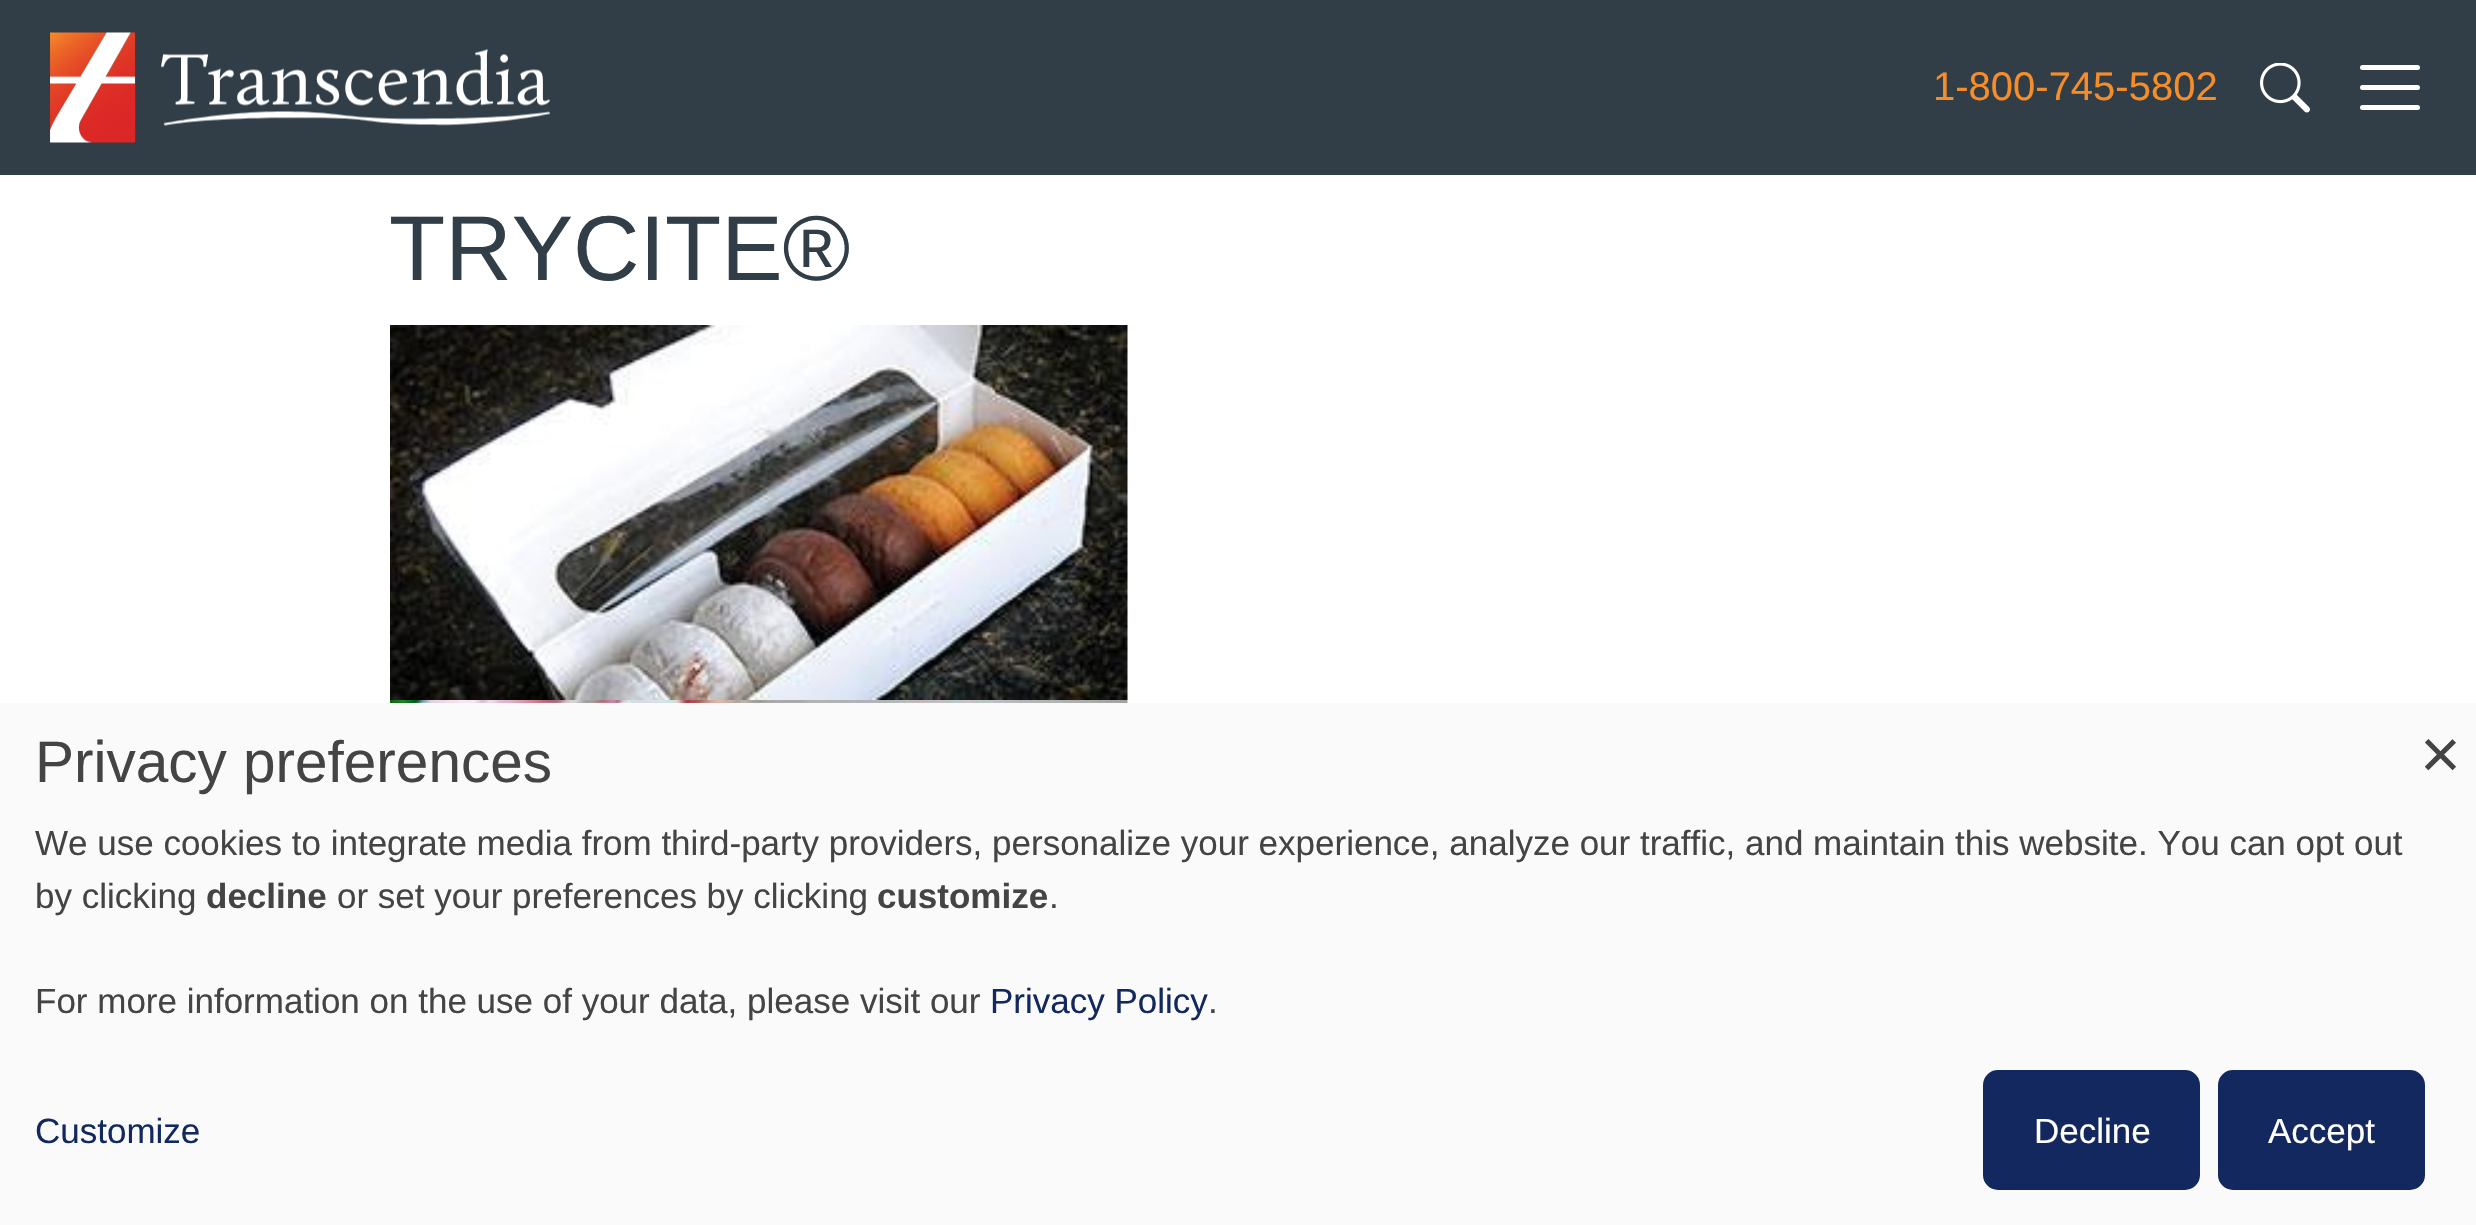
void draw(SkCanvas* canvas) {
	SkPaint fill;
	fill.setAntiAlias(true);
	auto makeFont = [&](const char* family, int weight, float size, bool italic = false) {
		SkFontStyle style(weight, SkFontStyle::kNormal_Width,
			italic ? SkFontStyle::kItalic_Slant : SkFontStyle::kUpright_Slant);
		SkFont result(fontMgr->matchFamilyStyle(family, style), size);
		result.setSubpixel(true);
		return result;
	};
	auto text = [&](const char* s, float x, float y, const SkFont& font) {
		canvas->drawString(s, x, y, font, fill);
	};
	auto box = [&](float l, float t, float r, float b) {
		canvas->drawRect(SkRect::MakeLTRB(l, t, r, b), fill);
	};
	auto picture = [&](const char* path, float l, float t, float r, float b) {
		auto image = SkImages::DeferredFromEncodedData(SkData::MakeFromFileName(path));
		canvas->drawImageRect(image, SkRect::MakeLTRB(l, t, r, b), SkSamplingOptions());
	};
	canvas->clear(0xFFFFFFFF);
	fill.setColor(0xFF313E48);
	box(0, 0, 2476, 175);
	picture("image0.png", 50, 32, 550, 143);
	picture("image1.png", 2260, 63, 2310, 113);
	fill.setStyle(SkPaint::kStroke_Style);
	fill.setStrokeWidth(5);
	fill.setStrokeCap(SkPaint::kRound_Cap);
	fill.setColor(0xFFFFFFFF);
	canvas->drawPath(SkPathBuilder().moveTo(2362.5f, 67.5f).lineTo(2417.5f, 67.5f).moveTo(2362.5f, 87.5f).lineTo(2417.5f, 87.5f).moveTo(2362.5f, 107.5f).lineTo(2417.5f, 107.5f).detach(), fill);
	picture("image2.png", 390, 325, 1128, 700);
	picture("image3.png", 390, 700, 1128, 703);
	fill.setStyle(SkPaint::kFill_Style);
	fill.setColor(0xFFFAFAFA);
	box(0, 703, 2476, 1225);
	fill.setColor(0xFF12285F);
	canvas->drawRoundRect(SkRect::MakeLTRB(1987, 1074, 2196, 1186), 11, 11, fill);
	fill.setStyle(SkPaint::kStroke_Style);
	fill.setStrokeWidth(8);
	fill.setStrokeCap(SkPaint::kButt_Cap);
	canvas->drawRoundRect(SkRect::MakeLTRB(1987, 1074, 2196, 1186), 11, 11, fill);
	fill.setStyle(SkPaint::kFill_Style);
	canvas->drawRoundRect(SkRect::MakeLTRB(2222, 1074, 2421, 1186), 11, 11, fill);
	fill.setStyle(SkPaint::kStroke_Style);
	canvas->drawRoundRect(SkRect::MakeLTRB(2222, 1074, 2421, 1186), 11, 11, fill);
	auto font1 = makeFont("Liberation Sans", 400, 40);
	fill.setStyle(SkPaint::kFill_Style);
	fill.setColor(0xFFF78D28);
	text("1-800-745-5802", 1933, 100, font1);
	auto font2 = makeFont("Liberation Sans", 400, 92);
	fill.setColor(0xFF313E48);
	text("TRYCITE®", 389, 280, font2);
	auto font3 = makeFont("Liberation Sans", 400, 58.5f);
	fill.setColor(0xFF444444);
	text("Privacy preferences", 35, 782, font3);
	auto font4 = makeFont("Liberation Sans", 400, 35);
	text("We use cookies to integrate media from third-party providers, personalize your experience, analyze our traffic, and maintain this website. You can opt out", 35, 855, font4);
	text("by clicking", 35, 908, font4);
	auto font5 = makeFont("Liberation Sans", 700, 35);
	text("decline", 206, 908, font5);
	text("or set your preferences by clicking", 337, 908, font4);
	text("customize", 877, 908, font5);
	text(".", 1049, 908, font4);
	text("For more information on the use of your data, please visit our", 35, 1013, font4);
	fill.setColor(0xFF12285F);
	text("Privacy Policy", 990, 1013, font4);
	fill.setColor(0xFF444444);
	text(".", 1208, 1013, font4);
	fill.setColor(0xFF12285F);
	text("Customize", 35, 1143, font4);
	fill.setColor(0xFFFFFFFF);
	text("Decline", 2034, 1143, font4);
	text("Accept", 2268, 1143, font4);
	auto font6 = makeFont("Liberation Sans", 400, 70);
	fill.setColor(0xFF444444);
	text("×", 2420, 778, font6);
}
